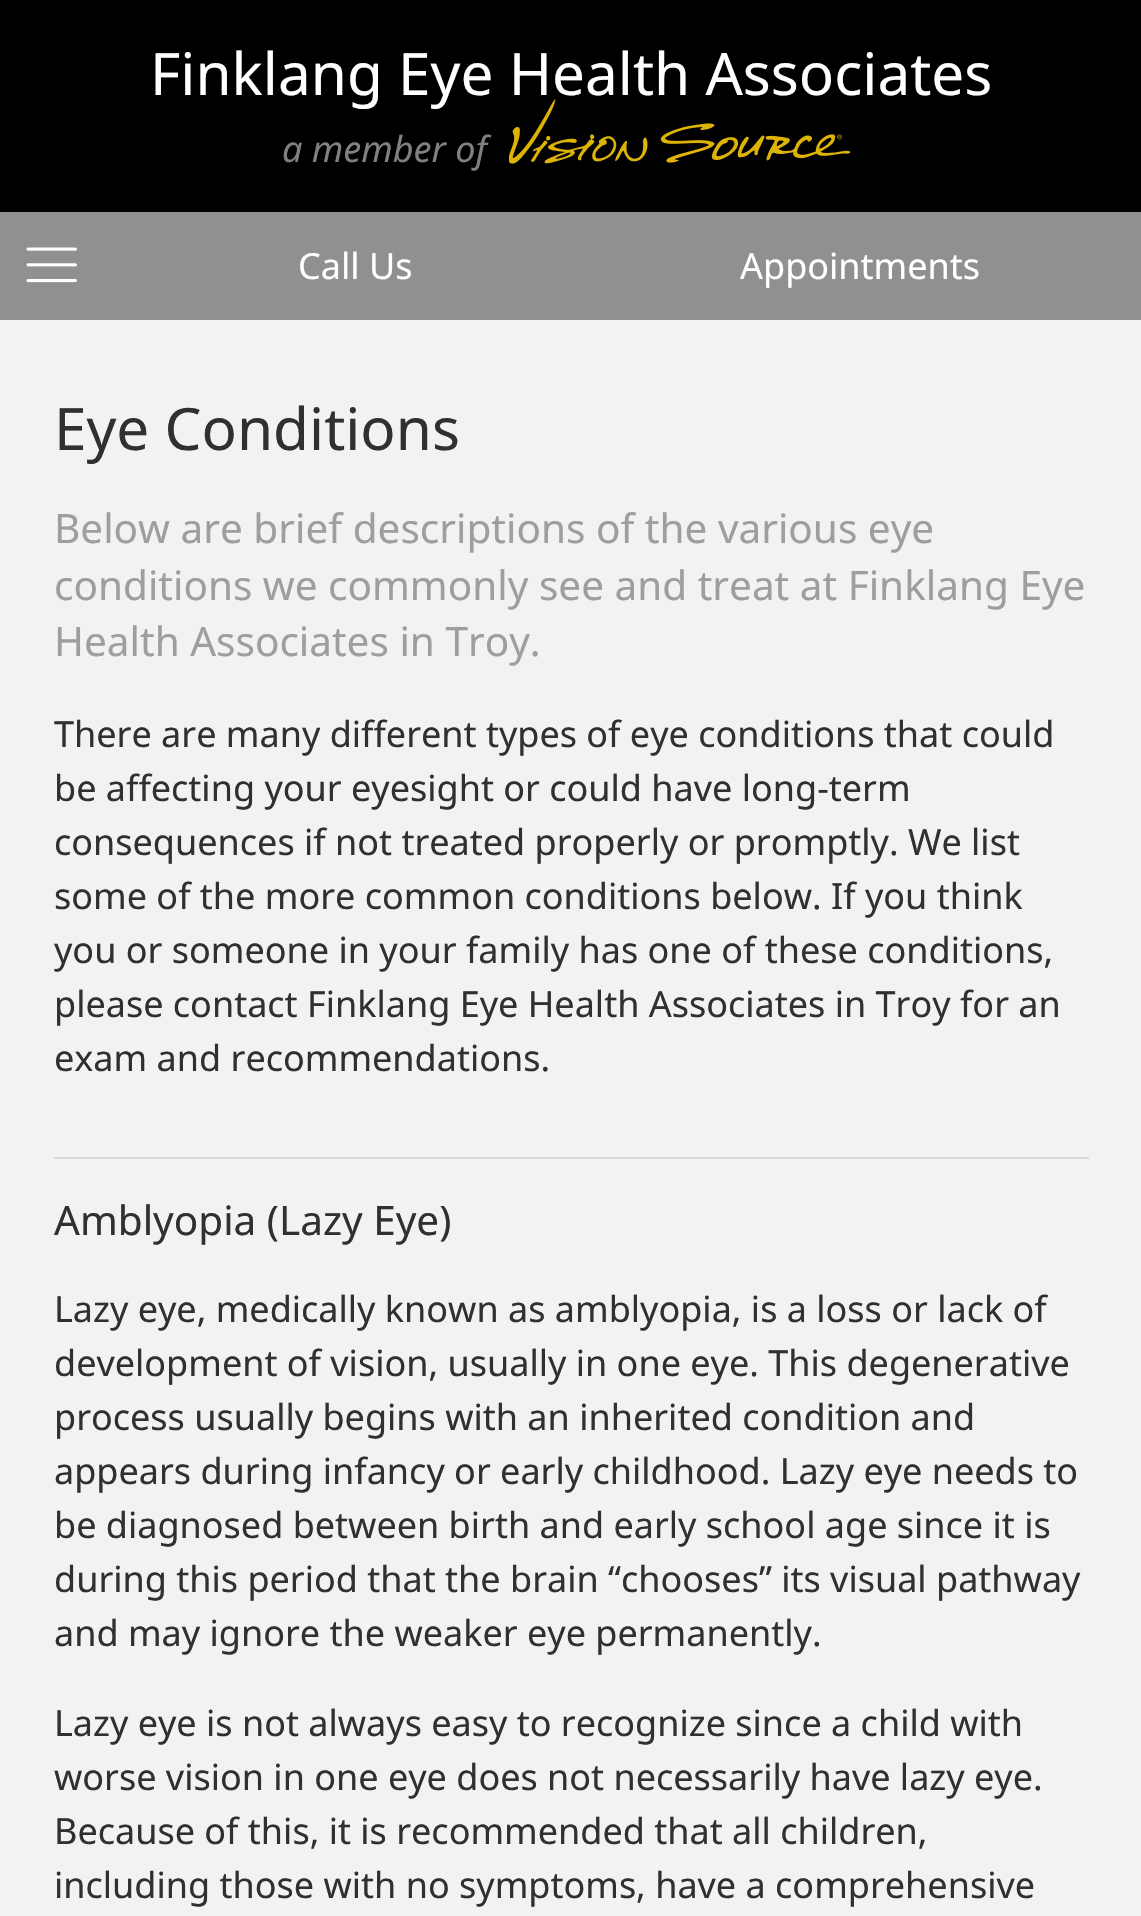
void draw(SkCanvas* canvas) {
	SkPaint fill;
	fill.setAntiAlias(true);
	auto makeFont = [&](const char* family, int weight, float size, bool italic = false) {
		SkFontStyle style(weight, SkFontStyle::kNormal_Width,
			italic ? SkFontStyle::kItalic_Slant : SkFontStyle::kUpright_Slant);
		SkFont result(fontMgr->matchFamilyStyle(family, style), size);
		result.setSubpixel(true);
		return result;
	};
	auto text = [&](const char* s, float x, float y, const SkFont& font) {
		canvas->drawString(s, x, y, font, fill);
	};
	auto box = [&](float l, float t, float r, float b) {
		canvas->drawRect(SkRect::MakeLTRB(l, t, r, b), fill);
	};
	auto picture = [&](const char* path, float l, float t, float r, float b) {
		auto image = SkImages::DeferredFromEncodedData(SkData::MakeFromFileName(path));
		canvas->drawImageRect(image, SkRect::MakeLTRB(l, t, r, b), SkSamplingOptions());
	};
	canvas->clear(0xFFF2F2F2);
	fill.setColor(0xFF000000);
	box(0, 0, 1141, 212);
	fill.setColor(0xFF909090);
	box(0, 212, 1141, 320);
	picture("image1.png", 26, 247, 77, 283);
	fill.setColor(0xFFDADADA);
	box(54, 1157, 1089, 1159);
	auto font1 = makeFont("Noto Sans", 400, 58.5f);
	fill.setColor(0xFFFFFFFF);
	text("Finklang Eye Health Associates", 150, 95, font1);
	auto font2 = makeFont("Noto Sans", 400, 36, true);
	fill.setColor(0xFF808080);
	text("a member of", 282, 162, font2);
	picture("image0.png", 509, 99, 851, 164);
	auto font3 = makeFont("Noto Sans", 400, 36);
	fill.setColor(0xFFFFFFFF);
	text("Call Us", 298, 279, font3);
	text("Appointments", 740, 279, font3);
	fill.setColor(0xFF303030);
	text("Eye Conditions", 54, 450, font1);
	auto font4 = makeFont("Noto Sans", 400, 40.5f);
	fill.setColor(0xFF9E9E9E);
	text("Below are brief descriptions of the various eye", 54, 543, font4);
	text("conditions we commonly see and treat at Finklang Eye", 54, 600, font4);
	text("Health Associates in Troy.", 54, 656, font4);
	fill.setColor(0xFF303030);
	text("There are many different types of eye conditions that could", 54, 747, font3);
	text("be affecting your eyesight or could have long-term", 54, 801, font3);
	text("consequences if not treated properly or promptly. We list", 54, 855, font3);
	text("some of the more common conditions below. If you think", 54, 909, font3);
	text("you or someone in your family has one of these conditions,", 54, 963, font3);
	text("please contact Finklang Eye Health Associates in Troy for an", 54, 1017, font3);
	text("exam and recommendations.", 54, 1071, font3);
	text("Amblyopia (Lazy Eye)", 54, 1235, font4);
	text("Lazy eye, medically known as amblyopia, is a loss or lack of", 54, 1322, font3);
	text("development of vision, usually in one eye. This degenerative", 54, 1376, font3);
	text("process usually begins with an inherited condition and", 54, 1430, font3);
	text("appears during infancy or early childhood. Lazy eye needs to", 54, 1484, font3);
	text("be diagnosed between birth and early school age since it is", 54, 1538, font3);
	text("during this period that the brain “chooses” its visual pathway", 54, 1592, font3);
	text("and may ignore the weaker eye permanently.", 54, 1646, font3);
	text("Lazy eye is not always easy to recognize since a child with", 54, 1736, font3);
	text("worse vision in one eye does not necessarily have lazy eye.", 54, 1790, font3);
	text("Because of this, it is recommended that all children,", 54, 1844, font3);
	text("including those with no symptoms, have a comprehensive", 54, 1898, font3);
}
